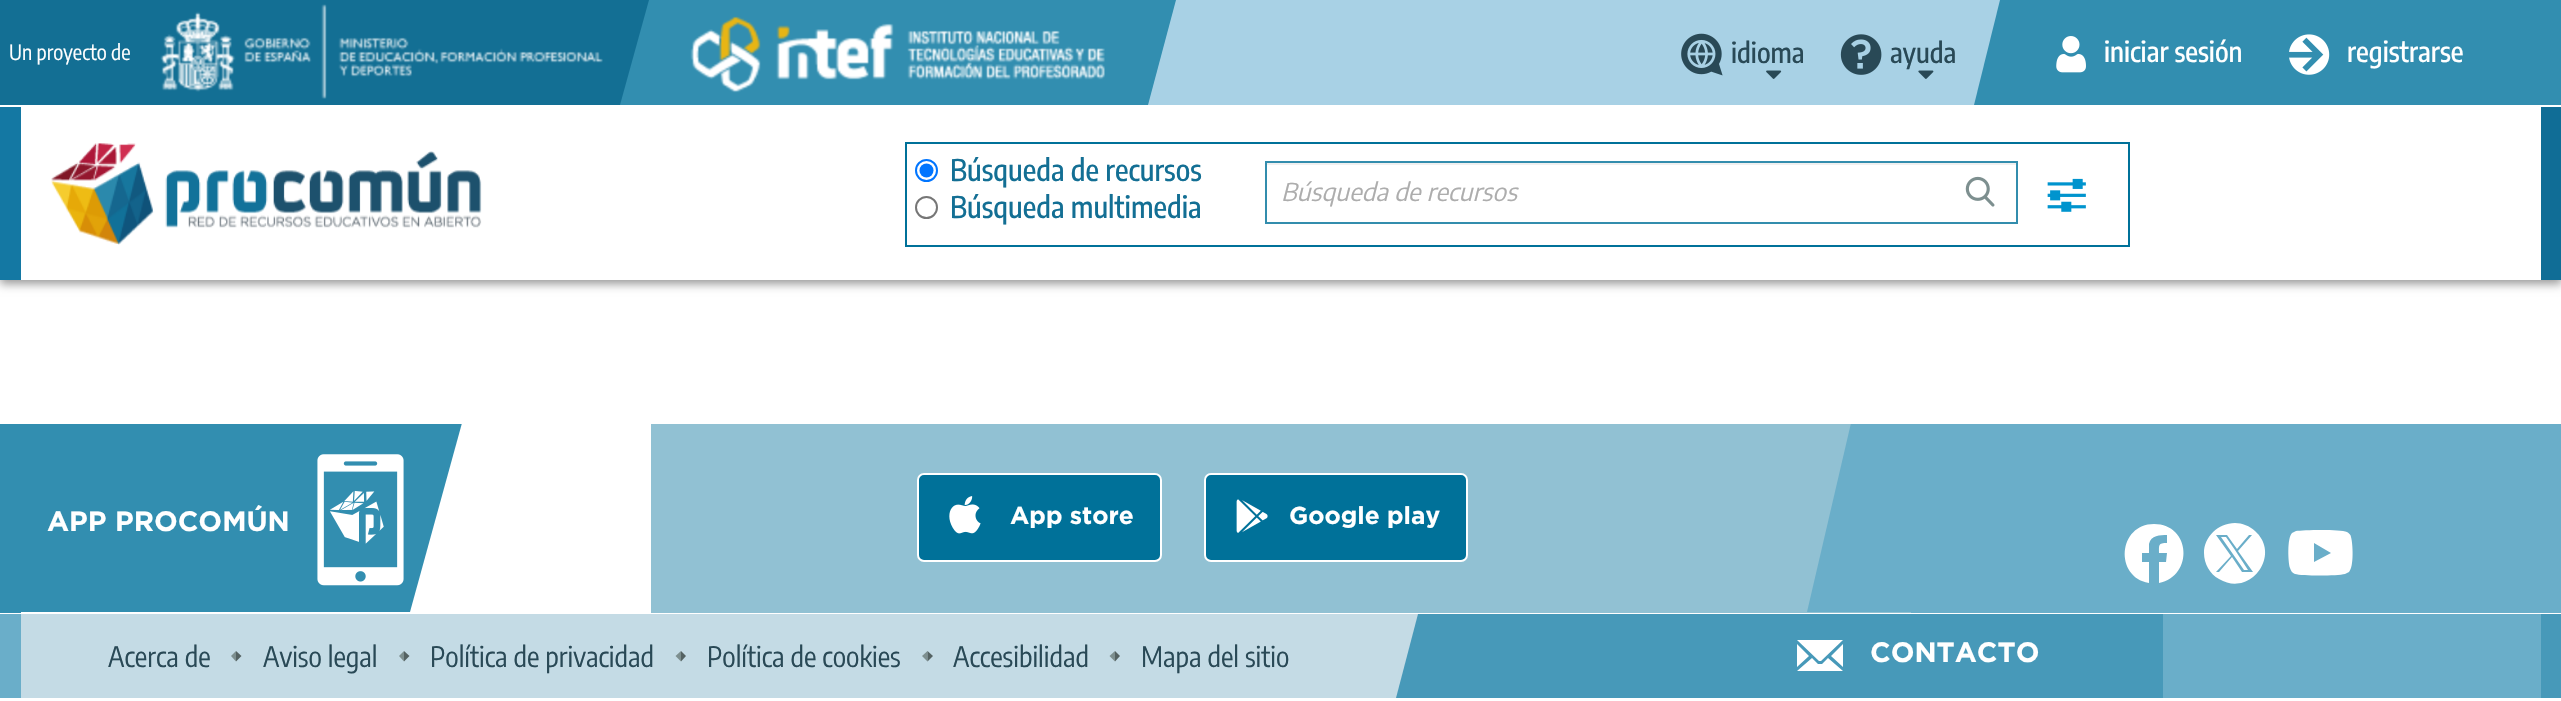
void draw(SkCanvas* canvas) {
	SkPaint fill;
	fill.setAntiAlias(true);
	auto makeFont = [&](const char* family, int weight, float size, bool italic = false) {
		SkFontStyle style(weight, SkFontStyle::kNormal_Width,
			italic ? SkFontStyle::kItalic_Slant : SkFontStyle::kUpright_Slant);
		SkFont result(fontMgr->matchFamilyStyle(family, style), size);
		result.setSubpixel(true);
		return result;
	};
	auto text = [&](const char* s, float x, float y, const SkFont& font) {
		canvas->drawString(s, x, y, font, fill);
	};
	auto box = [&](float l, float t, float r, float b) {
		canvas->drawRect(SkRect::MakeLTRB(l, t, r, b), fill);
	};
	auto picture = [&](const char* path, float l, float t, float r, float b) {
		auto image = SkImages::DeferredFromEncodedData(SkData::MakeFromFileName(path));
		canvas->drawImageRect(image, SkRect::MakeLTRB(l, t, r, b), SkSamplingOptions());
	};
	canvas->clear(0xFFFFFFFF);
	fill.setColor(0x66000000);
	fill.setMaskFilter(SkMaskFilter::MakeBlur(kNormal_SkBlurStyle, 4.5f));
	canvas->drawRect(SkRect::MakeLTRB(0, 4, 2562, 284), fill);
	fill.setMaskFilter(nullptr);
	fill.setColor(0xFF136F94);
	box(0, 0, 614, 105);
	picture("image0.png", 160, 4, 603, 99);
	fill.setColor(0xFF328EB0);
	box(620, 0, 1176, 105);
	fill.setColor(0xFF136F94);
	canvas->drawPath(SkPathBuilder().moveTo(614, 0).lineTo(649, 0).lineTo(620, 105).lineTo(614, 105).close().detach(), fill);
	picture("image1.png", 690, 16, 1105, 93);
	fill.setColor(0xFFA8D1E5);
	canvas->drawPath(SkPathBuilder().moveTo(1183, 105).lineTo(1148, 105).lineTo(1176, 0).lineTo(1183, 0).close().detach(), fill);
	box(1183, 0, 1634, 105);
	box(1643, 0, 2000, 105);
	canvas->drawPath(SkPathBuilder().moveTo(1634, 0).lineTo(1670, 0).lineTo(1643, 105).lineTo(1634, 105).close().detach(), fill);
	picture("image2.png", 1681, 33, 1723, 76);
	picture("image3.png", 1766, 70, 1782, 79);
	picture("image4.png", 1840, 34, 1882, 75);
	picture("image5.png", 1918, 70, 1934, 79);
	fill.setColor(0xFF328EB0);
	canvas->drawPath(SkPathBuilder().moveTo(2009, 105).lineTo(1974, 105).lineTo(2000, 0).lineTo(2009, 0).close().detach(), fill);
	box(2009, 0, 2561, 105);
	picture("image6.png", 2056, 36, 2086, 73);
	picture("image7.png", 2289, 34, 2330, 75);
	fill.setColor(0xFFFFFFFF);
	box(0, 105, 2561, 107);
	fill.setColor(0xFF1478A3);
	box(0, 107, 21, 280);
	fill.setColor(0xFFFFFFFF);
	box(21, 107, 2541, 280);
	picture("image8.png", 51, 143, 482, 245);
	fill.setStyle(SkPaint::kStroke_Style);
	fill.setStrokeWidth(2);
	fill.setColor(0xFF007199);
	canvas->drawRect(SkRect::MakeLTRB(906, 143, 2129, 246), fill);
	fill.setColor(0xFF0075FF);
	canvas->drawCircle(926.5f, 170.5f, 10.5f, fill);
	fill.setStyle(SkPaint::kFill_Style);
	canvas->drawCircle(926.5f, 170.5f, 7, fill);
	fill.setStyle(SkPaint::kStroke_Style);
	fill.setColor(0xFF767676);
	canvas->drawCircle(926.5f, 207.5f, 10.5f, fill);
	fill.setStyle(SkPaint::kFill_Style);
	fill.setColor(0xFFF0F0F0);
	box(1267, 163, 2016, 165);
	fill.setStyle(SkPaint::kStroke_Style);
	fill.setColor(0xFF338DAD);
	canvas->drawRect(SkRect::MakeLTRB(1266, 162, 2017, 223), fill);
	picture("image9.png", 1965, 176, 1995, 207);
	picture("image10.png", 2047, 178, 2086, 212);
	fill.setStyle(SkPaint::kFill_Style);
	fill.setColor(0xFF106D96);
	box(2541, 107, 2561, 280);
	fill.setColor(0xFF91C1D3);
	box(651, 424, 1911, 613);
	canvas->save();
	canvas->clipRect(SkRect::MakeLTRB(0, 424, 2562, 613));
	fill.setColor(0xFF328EB0);
	canvas->drawPath(SkPathBuilder().moveTo(-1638, 423).lineTo(462, 423).lineTo(410, 612).lineTo(-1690, 612).close().detach(), fill);
	fill.setColor(0xFF6AAEC9);
	canvas->drawPath(SkPathBuilder().moveTo(1851, 423).lineTo(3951, 423).lineTo(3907, 612).lineTo(1807, 612).close().detach(), fill);
	canvas->restore();
	fill.setColor(0xFFFFFFFF);
	canvas->drawPath(SkPathBuilder().moveTo(2154, 524).cubicTo(2118, 524, 2114, 577, 2149, 583).lineTo(2149, 562).lineTo(2142, 562).lineTo(2142, 553).lineTo(2149, 553).lineTo(2149, 544).cubicTo(2151, 535, 2160, 535, 2167, 535).lineTo(2167, 543).cubicTo(2158, 543, 2159, 545, 2159, 553).lineTo(2167, 553).lineTo(2166, 562).lineTo(2159, 562).lineTo(2159, 583).cubicTo(2194, 576, 2191, 524, 2154, 524).close().detach(), fill);
	canvas->drawPath(SkPathBuilder().moveTo(2235, 550).lineTo(2226, 537).lineTo(2221, 537).lineTo(2244, 570).lineTo(2248, 570).close().moveTo(2235, 523).cubicTo(2218, 523, 2204, 537, 2204, 553).cubicTo(2204, 564, 2210, 574, 2219, 579).cubicTo(2250, 598, 2282, 555, 2255, 531).cubicTo(2250, 526, 2242, 523, 2235, 523).close().moveTo(2242, 572).lineTo(2232, 557).lineTo(2219, 572).lineTo(2216, 572).lineTo(2231, 556).lineTo(2216, 535).lineTo(2227, 535).lineTo(2237, 549).lineTo(2249, 535).lineTo(2252, 535).lineTo(2238, 551).lineTo(2253, 572).close().detach(), fill);
	canvas->drawPath(SkPathBuilder().moveTo(2351, 537).cubicTo(2351, 535, 2349, 533, 2347, 532).cubicTo(2340, 529, 2303, 530, 2296, 531).lineTo(2292, 533).cubicTo(2287, 538, 2288, 562, 2290, 568).cubicTo(2291, 571, 2292, 573, 2295, 574).cubicTo(2302, 576, 2337, 576, 2345, 574).lineTo(2349, 572).cubicTo(2354, 567, 2353, 544, 2351, 537).close().moveTo(2314, 562).lineTo(2314, 543).lineTo(2331, 553).close().detach(), fill);
	picture("image11.png", 317, 454, 404, 586);
	fill.setColor(0xFF007199);
	canvas->drawRoundRect(SkRect::MakeLTRB(918, 474, 1161, 561), 6, 6, fill);
	fill.setStyle(SkPaint::kStroke_Style);
	fill.setColor(0xFFFFFFFF);
	canvas->drawRoundRect(SkRect::MakeLTRB(918, 474, 1161, 561), 6, 6, fill);
	picture("image12.png", 949, 496, 981, 534);
	fill.setStyle(SkPaint::kFill_Style);
	fill.setColor(0xFF007199);
	canvas->drawRoundRect(SkRect::MakeLTRB(1205, 474, 1467, 561), 6, 6, fill);
	fill.setStyle(SkPaint::kStroke_Style);
	fill.setColor(0xFFFFFFFF);
	canvas->drawRoundRect(SkRect::MakeLTRB(1205, 474, 1467, 561), 6, 6, fill);
	picture("image13.png", 1236, 499, 1268, 533);
	fill.setStyle(SkPaint::kFill_Style);
	fill.setColor(0xFF328EB0);
	box(0, 612, 21, 613);
	fill.setColor(0xFF6AAEC9);
	box(1911, 612, 2561, 613);
	box(0, 614, 2541, 698);
	fill.setColor(0xFFC4DBE5);
	box(21, 614, 1386, 698);
	fill.setColor(0xFF7D8F8F);
	canvas->drawPath(SkPathBuilder().moveTo(236, 651).lineTo(236, 661.5f).lineTo(231, 656).close().detach(), fill);
	fill.setColor(0xFF546262);
	canvas->drawPath(SkPathBuilder().moveTo(236, 661.5f).lineTo(236, 651).lineTo(241.5f, 656).close().detach(), fill);
	fill.setColor(0xFF7D8F8F);
	canvas->drawPath(SkPathBuilder().moveTo(404, 651).lineTo(404, 661.5f).lineTo(399, 656).close().detach(), fill);
	fill.setColor(0xFF546262);
	canvas->drawPath(SkPathBuilder().moveTo(404, 661.5f).lineTo(404, 651).lineTo(409.5f, 656).close().detach(), fill);
	fill.setColor(0xFF7D8F8F);
	canvas->drawPath(SkPathBuilder().moveTo(681, 651).lineTo(681, 661.5f).lineTo(675.5f, 656).close().detach(), fill);
	fill.setColor(0xFF546262);
	canvas->drawPath(SkPathBuilder().moveTo(681, 661.5f).lineTo(681, 651).lineTo(686, 656).close().detach(), fill);
	fill.setColor(0xFF7D8F8F);
	canvas->drawPath(SkPathBuilder().moveTo(927.5f, 651).lineTo(927.5f, 661.5f).lineTo(922, 656).close().detach(), fill);
	fill.setColor(0xFF546262);
	canvas->drawPath(SkPathBuilder().moveTo(927.5f, 661.5f).lineTo(927.5f, 651).lineTo(933, 656).close().detach(), fill);
	fill.setColor(0xFF7D8F8F);
	canvas->drawPath(SkPathBuilder().moveTo(1115, 651).lineTo(1115, 661.5f).lineTo(1109.5f, 656).close().detach(), fill);
	fill.setColor(0xFF546262);
	canvas->drawPath(SkPathBuilder().moveTo(1115, 661.5f).lineTo(1115, 651).lineTo(1120, 656).close().detach(), fill);
	fill.setColor(0xFF4799B9);
	box(1396, 614, 2163, 698);
	fill.setColor(0xFFC4DBE5);
	canvas->drawPath(SkPathBuilder().moveTo(1386, 614).lineTo(1418, 614).lineTo(1396, 698).lineTo(1386, 698).close().detach(), fill);
	fill.setColor(0xFFFFFFFF);
	canvas->drawPath(SkPathBuilder().moveTo(1821, 661).lineTo(1843, 640).lineTo(1797, 640).lineTo(1819, 661).close().moveTo(1822, 664).lineTo(1818, 664).lineTo(1812, 658).lineTo(1797, 671).lineTo(1843, 671).lineTo(1828, 658).close().moveTo(1809, 656).lineTo(1797, 644).lineTo(1797, 667).close().moveTo(1843, 667).lineTo(1843, 644).lineTo(1831, 656).close().detach(), fill);
	fill.setColor(0xFF4799B9);
	box(2541, 614, 2561, 698);
	auto font1 = makeFont("Encode Sans Condensed", 400, 21);
	fill.setColor(0xFFFFFFFF);
	text("Un proyecto de", 9, 60, font1);
	auto font2 = makeFont("Encode Sans Condensed", 500, 28);
	fill.setColor(0xFF294956);
	text("idioma", 1731, 63, font2);
	text("ayuda", 1890, 63, font2);
	fill.setColor(0xFFFFFFFF);
	text("iniciar sesión", 2104, 62, font2);
	text("registrarse", 2347, 62, font2);
	auto font3 = makeFont("Encode Sans Condensed", 500, 29.75f);
	fill.setColor(0xFF136F94);
	text("Búsqueda de recursos", 950, 181, font3);
	text("Búsqueda multimedia", 950, 218, font3);
	auto font4 = makeFont("Encode Sans", 400, 24.5f, true);
	fill.setColor(0xFFADADAD);
	text("Búsqueda de recursos", 1281, 201, font4);
	auto font5 = makeFont("Gotham", 700, 28);
	fill.setColor(0xFFFFFFFF);
	text("APP PROCOMÚN", 47, 531, font5);
	auto font6 = makeFont("Gotham", 700, 24.5f);
	text("App store", 1010, 524, font6);
	text("Google play", 1289, 524, font6);
	auto font7 = makeFont("Encode Sans Condensed", 400, 28);
	fill.setColor(0xFF294956);
	text("Acerca de", 108, 667, font7);
	text("Aviso legal", 263, 667, font7);
	text("Política de privacidad", 430, 667, font7);
	text("Política de cookies", 707, 667, font7);
	text("Accesibilidad", 953, 667, font7);
	text("Mapa del sitio", 1141, 667, font7);
	fill.setColor(0xFFFFFFFF);
	text("CONTACTO", 1870, 662, font5);
}
